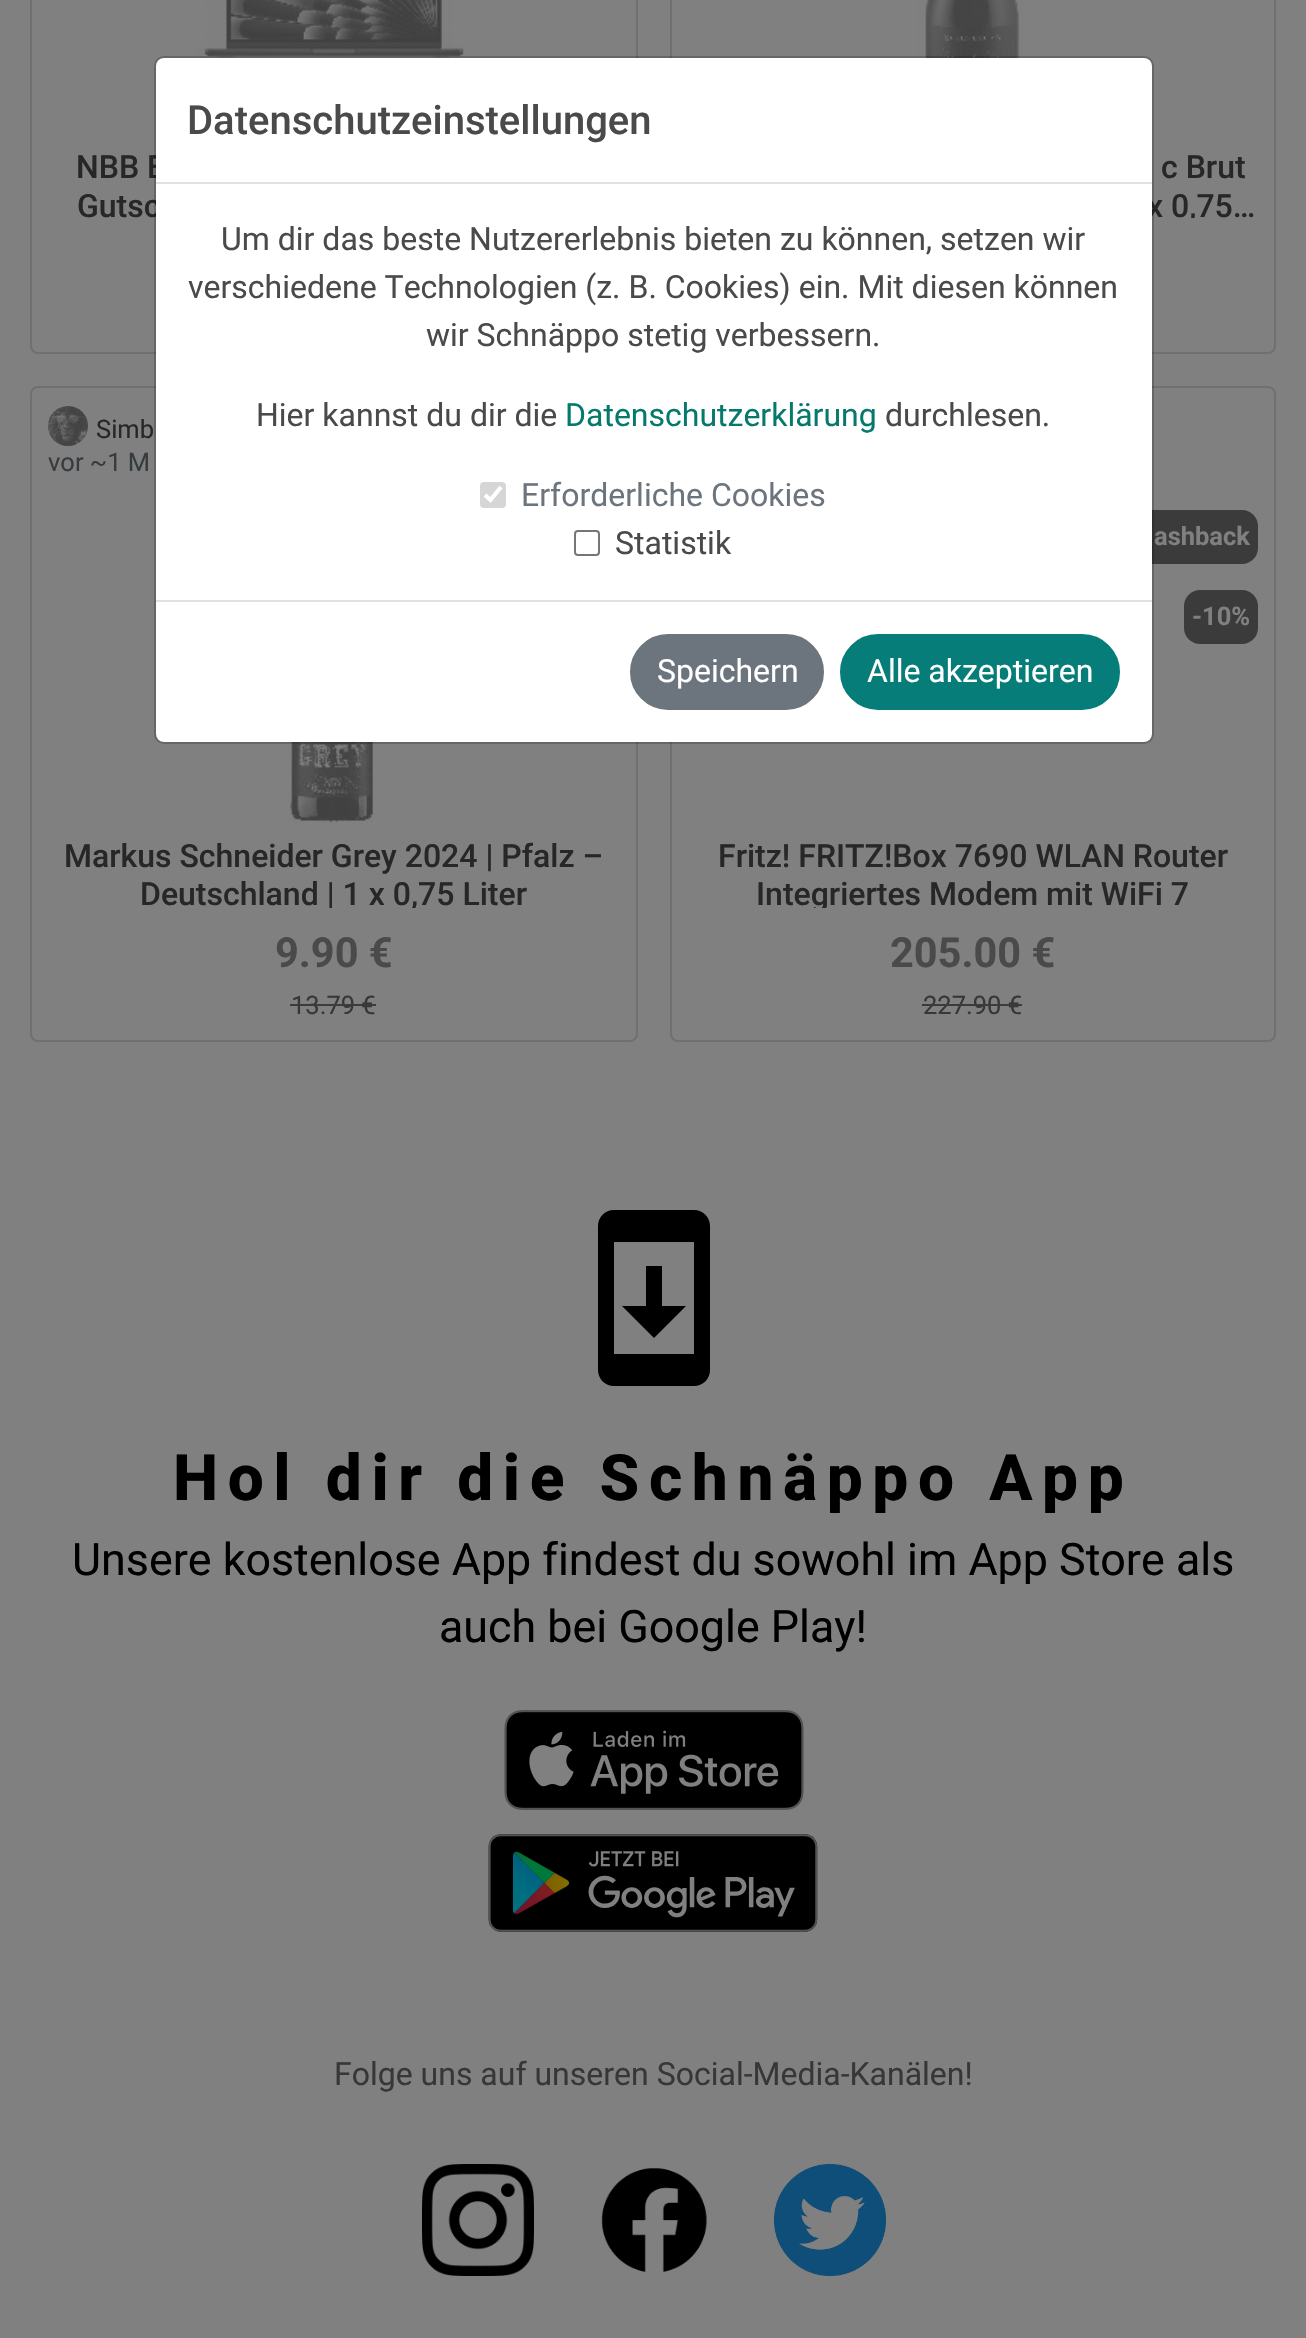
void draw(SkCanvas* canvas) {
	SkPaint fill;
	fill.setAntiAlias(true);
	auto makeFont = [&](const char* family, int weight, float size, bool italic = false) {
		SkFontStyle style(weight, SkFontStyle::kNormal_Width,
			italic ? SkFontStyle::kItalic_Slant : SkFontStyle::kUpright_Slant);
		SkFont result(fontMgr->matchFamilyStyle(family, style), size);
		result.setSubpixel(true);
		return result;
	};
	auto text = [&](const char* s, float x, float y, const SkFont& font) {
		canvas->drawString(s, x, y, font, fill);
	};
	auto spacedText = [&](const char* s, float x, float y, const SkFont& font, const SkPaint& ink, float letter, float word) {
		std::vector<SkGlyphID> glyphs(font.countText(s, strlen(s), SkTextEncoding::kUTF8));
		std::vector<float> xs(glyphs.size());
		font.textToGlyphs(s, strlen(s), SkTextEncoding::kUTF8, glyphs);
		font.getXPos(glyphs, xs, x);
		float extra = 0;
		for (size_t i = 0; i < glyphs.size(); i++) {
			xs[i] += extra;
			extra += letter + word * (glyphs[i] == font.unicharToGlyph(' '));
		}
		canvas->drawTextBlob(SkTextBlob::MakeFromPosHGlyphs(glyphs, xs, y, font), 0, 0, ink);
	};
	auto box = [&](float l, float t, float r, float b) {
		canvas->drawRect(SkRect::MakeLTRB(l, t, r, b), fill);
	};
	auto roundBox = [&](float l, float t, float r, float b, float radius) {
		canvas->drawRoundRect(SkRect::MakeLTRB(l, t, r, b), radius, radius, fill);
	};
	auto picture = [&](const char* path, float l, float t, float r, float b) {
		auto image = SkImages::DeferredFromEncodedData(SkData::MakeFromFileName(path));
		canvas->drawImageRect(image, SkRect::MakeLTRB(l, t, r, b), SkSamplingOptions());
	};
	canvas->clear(0xFF808080);
	fill.setStyle(SkPaint::kStroke_Style);
	fill.setStrokeWidth(2);
	fill.setColor(0xFF707070);
	canvas->drawRoundRect(SkRect::MakeLTRB(31, -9, 637, 353), 7, 7, fill);
	picture("image0.png", 197, 0, 464, 58);
	canvas->drawRoundRect(SkRect::MakeLTRB(671, -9, 1275, 353), 7, 7, fill);
	picture("image1.png", 918, 0, 1023, 58);
	canvas->drawRoundRect(SkRect::MakeLTRB(31, 387, 637, 1041), 7, 7, fill);
	picture("image2.png", 48, 406, 88, 446);
	picture("image3.png", 289, 742, 374, 822);
	canvas->drawRoundRect(SkRect::MakeLTRB(671, 387, 1275, 1041), 7, 7, fill);
	fill.setStyle(SkPaint::kFill_Style);
	fill.setColor(0xFF3B3B3B);
	roundBox(1128, 510, 1258, 564, 16);
	roundBox(1184, 590, 1258, 644, 16);
	picture("image4.png", 820, 742, 1121, 743);
	fill.setColor(0xFF000000);
	canvas->drawPath(SkPathBuilder().moveTo(694, 1210).lineTo(614, 1210).cubicTo(605, 1210, 598, 1217, 598, 1226).lineTo(598, 1370).cubicTo(598, 1379, 605, 1386, 614, 1386).lineTo(694, 1386).cubicTo(703, 1386, 710, 1379, 710, 1370).lineTo(710, 1226).cubicTo(710, 1217, 703, 1210, 694, 1210).close().moveTo(694, 1354).lineTo(614, 1354).lineTo(614, 1242).lineTo(694, 1242).close().moveTo(686, 1306).lineTo(662, 1306).lineTo(662, 1266).lineTo(646, 1266).lineTo(646, 1306).lineTo(622, 1306).lineTo(654, 1338).close().detach(), fill);
	picture("image5.png", 504, 1710, 804, 1810);
	picture("image6.png", 488, 1834, 818, 1932);
	picture("image7.png", 422, 2164, 534, 2276);
	picture("image8.png", 601, 2168, 707, 2272);
	picture("image9.png", 774, 2164, 886, 2276);
	auto font1 = makeFont("Roboto", 500, 32);
	fill.setColor(0xFF272727);
	text("NBB B", 76, 178, font1);
	text("Gutsc", 77, 217, font1);
	text("c Brut", 1161, 178, font1);
	canvas->save();
	canvas->clipRect(SkRect::MakeLTRB(688, 148, 1258, 218));
	text("x 0,75…", 1147, 217, font1);
	canvas->restore();
	fill.setColor(0xFFFFFFFF);
	roundBox(156, 58, 1152, 742, 8);
	fill.setStyle(SkPaint::kStroke_Style);
	fill.setColor(0x33000000);
	canvas->drawRoundRect(SkRect::MakeLTRB(155, 57, 1153, 743), 9, 9, fill);
	fill.setColor(0xFF767676);
	canvas->drawRoundRect(SkRect::MakeLTRB(575, 531, 599, 555), 3, 3, fill);
	auto font2 = makeFont("Roboto", 400, 32);
	fill.setStyle(SkPaint::kFill_Style);
	fill.setColor(0xFF4A4A4A);
	text("Statistik", 615, 554, font2);
	fill.setColor(0xFFD6D6D6);
	roundBox(480, 482, 506, 508, 4);
	fill.setStyle(SkPaint::kStroke_Style);
	fill.setStrokeWidth(4.2f);
	fill.setColor(0xFFFFFFFF);
	canvas->drawPath(SkPathBuilder().moveTo(485, 495).lineTo(490.5f, 500).lineTo(501, 487).detach(), fill);
	fill.setStyle(SkPaint::kFill_Style);
	fill.setColor(0xFF6C757D);
	text("Erforderliche Cookies", 521, 506, font2);
	fill.setColor(0xFF4A4A4A);
	text("durchlesen.", 885, 426, font2);
	fill.setColor(0xFF06796E);
	text("Datenschutzerklärung", 565, 426, font2);
	fill.setColor(0xFF4A4A4A);
	text("Hier kannst du dir die", 256, 426, font2);
	text("wir Schnäppo stetig verbessern.", 426, 346, font2);
	text("verschiedene Technologien (z. B. Cookies) ein. Mit diesen können", 188, 298, font2);
	text("Um dir das beste Nutzererlebnis bieten zu können, setzen wir", 221, 250, font2);
	fill.setColor(0xFF067D79);
	canvas->drawRoundRect(SkRect::MakeLTRB(841, 635, 1119, 709), 37, 37, fill);
	fill.setStyle(SkPaint::kStroke_Style);
	fill.setStrokeWidth(2);
	canvas->drawRoundRect(SkRect::MakeLTRB(841, 635, 1119, 709), 37, 37, fill);
	fill.setStyle(SkPaint::kFill_Style);
	fill.setColor(0xFFFFFFFF);
	text("Alle akzeptieren", 867, 682, font2);
	fill.setColor(0xFF6C757D);
	canvas->drawRoundRect(SkRect::MakeLTRB(631, 635, 823, 709), 37, 37, fill);
	fill.setStyle(SkPaint::kStroke_Style);
	canvas->drawRoundRect(SkRect::MakeLTRB(631, 635, 823, 709), 37, 37, fill);
	fill.setStyle(SkPaint::kFill_Style);
	fill.setColor(0xFFFFFFFF);
	text("Speichern", 657, 682, font2);
	fill.setColor(0xFFDEE2E6);
	box(156, 600, 1152, 602);
	auto font3 = makeFont("Roboto", 500, 40);
	fill.setColor(0xFF4A4A4A);
	text("Datenschutzeinstellungen", 187, 134, font3);
	fill.setColor(0xFFDEE2E6);
	box(156, 182, 1152, 184);
	auto font4 = makeFont("Roboto", 400, 25.5f);
	fill.setColor(0xFF272727);
	text("Simb", 96, 438, font4);
	fill.setColor(0xFF363B3F);
	text("vor ~1 M", 48, 471, font4);
	fill.setColor(0xFF272727);
	text("Markus Schneider Grey 2024 | Pfalz –", 64, 867, font1);
	canvas->save();
	canvas->clipRect(SkRect::MakeLTRB(48, 838, 620, 908));
	text("Deutschland | 1 x 0,75 Liter", 140, 905, font1);
	canvas->restore();
	auto font5 = makeFont("Roboto", 700, 41.5f);
	fill.setColor(0xFF4A4A4A);
	text("9.90 €", 275, 967, font5);
	fill.setColor(0xFF373737);
	text("13.79 €", 291, 1014, font4);
	fill.setColor(0xFF3B3B3B);
	box(290, 1004, 376, 1006);
	auto font6 = makeFont("Roboto", 700, 25.5f);
	fill.setColor(0xFF808080);
	text("ashback", 1154, 545, font6);
	text("-10%", 1192, 625, font6);
	fill.setColor(0xFF272727);
	text("Fritz! FRITZ!Box 7690 WLAN Router", 718, 867, font1);
	canvas->save();
	canvas->clipRect(SkRect::MakeLTRB(688, 838, 1258, 908));
	text("Integriertes Modem mit WiFi 7", 756, 905, font1);
	canvas->restore();
	fill.setColor(0xFF4A4A4A);
	text("205.00 €", 890, 967, font5);
	fill.setColor(0xFF373737);
	text("227.90 €", 923, 1014, font4);
	fill.setColor(0xFF3B3B3B);
	box(922, 1004, 1022, 1006);
	auto font7 = makeFont("Roboto", 800, 64);
	fill.setColor(0xFF000000);
	spacedText("Hol dir die Schnäppo App", 173, 1500, font7, fill, 9.6f, 0);
	auto font8 = makeFont("Roboto", 400, 44.8f);
	text("Unsere kostenlose App findest du sowohl im App Store als", 72, 1575, font8);
	text("auch bei Google Play!", 439, 1642, font8);
	fill.setColor(0xFF373737);
	text("Folge uns auf unseren Social-Media-Kanälen!", 334, 2085, font2);
}
